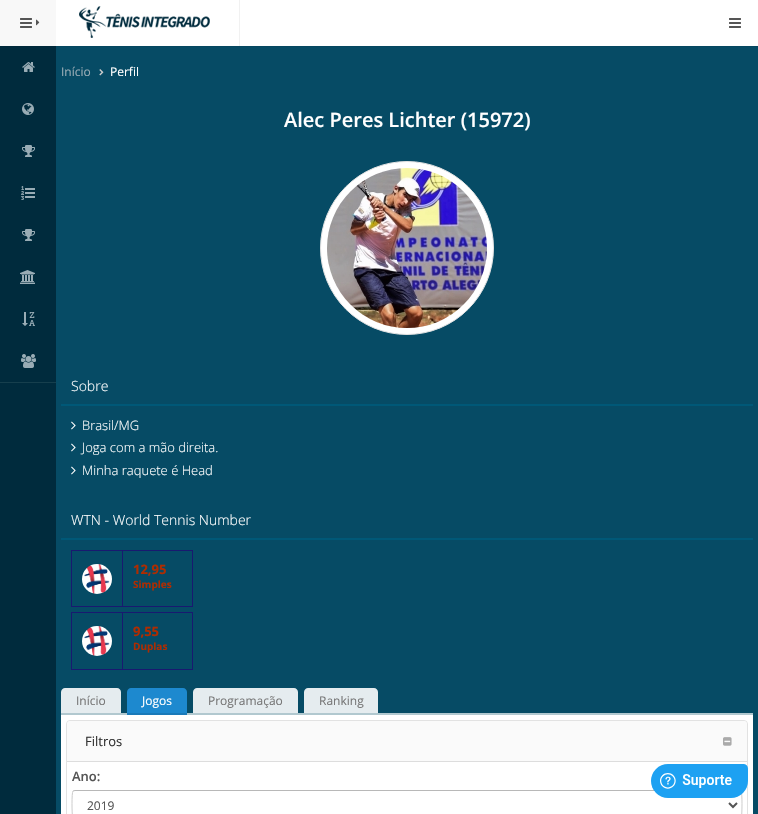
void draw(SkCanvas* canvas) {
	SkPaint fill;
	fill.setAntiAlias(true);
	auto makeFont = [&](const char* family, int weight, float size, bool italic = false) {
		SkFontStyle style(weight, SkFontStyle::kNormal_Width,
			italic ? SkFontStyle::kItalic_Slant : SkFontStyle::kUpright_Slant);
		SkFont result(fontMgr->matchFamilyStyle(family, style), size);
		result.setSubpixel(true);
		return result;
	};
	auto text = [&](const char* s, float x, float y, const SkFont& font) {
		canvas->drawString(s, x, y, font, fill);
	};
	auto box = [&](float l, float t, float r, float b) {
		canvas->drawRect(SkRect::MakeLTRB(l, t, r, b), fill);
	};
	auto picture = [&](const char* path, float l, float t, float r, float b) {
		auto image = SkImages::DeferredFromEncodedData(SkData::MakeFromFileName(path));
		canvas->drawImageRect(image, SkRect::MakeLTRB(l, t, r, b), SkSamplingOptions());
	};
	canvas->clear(0xFF064B65);
	fill.setColor(0xFF064760);
	box(56, 46, 758, 47);
	fill.setColor(0xFFF8F8F8);
	box(0, 0, 56, 46);
	picture("image0.png", 20, 18, 32, 28);
	picture("image1.png", 36, 19, 40, 26);
	fill.setColor(0xFFFFFFFF);
	box(56, 0, 758, 46);
	fill.setColor(0xFFF1F1F1);
	box(239, 0, 240, 46);
	picture("image2.png", 79, 6, 210, 38);
	picture("image3.png", 729, 18, 741, 28);
	fill.setColor(0xFF002B3D);
	box(0, 47, 56, 814);
	fill.setColor(0xFF00293A);
	box(0, 46, 56, 47);
	fill.setColor(0xFF163F4D);
	box(0, 382, 56, 383);
	picture("image4.png", 22, 62, 35, 72);
	picture("image5.png", 22, 103, 34, 115);
	picture("image6.png", 22, 145, 35, 157);
	picture("image7.png", 21, 186, 35, 200);
	picture("image6.png", 22, 229, 35, 241);
	picture("image8.png", 20, 270, 35, 284);
	picture("image9.png", 22, 312, 35, 326);
	picture("image10.png", 21, 354, 36, 368);
	picture("image11.png", 99, 69, 104, 76);
	fill.setColor(0xFFFFFFFF);
	canvas->drawCircle(407, 248, 86.5f, fill);
	fill.setStyle(SkPaint::kStroke_Style);
	fill.setStrokeWidth(1);
	fill.setColor(0xFFE2E2E2);
	canvas->drawCircle(407, 248, 86.5f, fill);
	picture("image12.png", 327, 168, 487, 328);
	fill.setStyle(SkPaint::kFill_Style);
	fill.setColor(0xFF005877);
	box(61, 404, 753, 406);
	picture("image13.png", 71, 421, 76, 430);
	picture("image13.png", 71, 443, 76, 452);
	picture("image13.png", 71, 466, 76, 475);
	box(61, 538, 753, 540);
	fill.setColor(0xFF191970);
	box(71, 550, 193, 551);
	box(192, 550, 193, 607);
	box(71, 606, 193, 607);
	box(71, 550, 72, 607);
	picture("image14.png", 82, 564, 112, 594);
	box(122, 550, 123, 607);
	box(71, 612, 193, 613);
	box(192, 612, 193, 670);
	box(71, 669, 193, 670);
	box(71, 612, 72, 670);
	picture("image15.png", 82, 626, 112, 656);
	box(122, 612, 123, 670);
	fill.setColor(0xFFB1C8CF);
	box(121, 713, 753, 715);
	fill.setColor(0xFFE5ECEF);
	canvas->drawPath(SkPathBuilder().moveTo(65, 688).lineTo(117, 688).cubicTo(119, 688, 121, 690, 121, 692).lineTo(121, 715).lineTo(61, 715).lineTo(61, 692).cubicTo(61, 690, 63, 688, 65, 688).close().detach(), fill);
	fill.setColor(0xFFB1C8CF);
	box(61, 713, 121, 715);
	fill.setColor(0xFF1D89CF);
	canvas->drawPath(SkPathBuilder().moveTo(131, 688).lineTo(183, 688).cubicTo(185, 688, 187, 690, 187, 692).lineTo(187, 715).lineTo(127, 715).lineTo(127, 692).cubicTo(127, 690, 129, 688, 131, 688).close().detach(), fill);
	fill.setColor(0xFF1A7AB9);
	box(127, 713, 187, 715);
	fill.setColor(0xFFE5ECEF);
	canvas->drawPath(SkPathBuilder().moveTo(197, 688).lineTo(294, 688).cubicTo(296, 688, 298, 690, 298, 692).lineTo(298, 715).lineTo(193, 715).lineTo(193, 692).cubicTo(193, 690, 195, 688, 197, 688).close().detach(), fill);
	fill.setColor(0xFFB1C8CF);
	box(193, 713, 298, 715);
	fill.setColor(0xFFE5ECEF);
	canvas->drawPath(SkPathBuilder().moveTo(308, 688).lineTo(374, 688).cubicTo(376, 688, 378, 690, 378, 692).lineTo(378, 715).lineTo(304, 715).lineTo(304, 692).cubicTo(304, 690, 306, 688, 308, 688).close().detach(), fill);
	fill.setColor(0xFFB1C8CF);
	box(304, 713, 378, 715);
	fill.setColor(0xFFFFFFFF);
	box(61, 715, 753, 814);
	fill.setStyle(SkPaint::kStroke_Style);
	fill.setColor(0xFFE2E2E2);
	canvas->drawRoundRect(SkRect::MakeLTRB(66.5f, 720.5f, 747.5f, 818.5f), 3.5f, 3.5f, fill);
	fill.setStyle(SkPaint::kFill_Style);
	fill.setColor(0xFFFAFAFA);
	canvas->drawPath(SkPathBuilder().moveTo(70, 721).lineTo(744, 721).cubicTo(745.5f, 721, 747, 722.5f, 747, 724).lineTo(747, 761).lineTo(67, 761).lineTo(67, 724).cubicTo(67, 722.5f, 68.5f, 721, 70, 721).close().detach(), fill);
	picture("image16.png", 723, 737, 732, 746);
	fill.setColor(0xFFDDDDDD);
	box(67, 761, 747, 762);
	fill.setStyle(SkPaint::kStroke_Style);
	fill.setColor(0xFFB8B8B8);
	canvas->drawPath(SkPathBuilder().moveTo(73, 791).lineTo(75, 790.5f).lineTo(739, 790.5f).lineTo(741, 791).detach(), fill);
	fill.setColor(0xFFCCCCCC);
	canvas->drawPath(SkPathBuilder().moveTo(741, 791).cubicTo(742.5f, 793, 742, 814, 741.5f, 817).lineTo(740, 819).lineTo(407, 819.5f).lineTo(74, 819).lineTo(72.5f, 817).cubicTo(72, 814, 71.5f, 793, 73, 791).detach(), fill);
	fill.setStrokeWidth(2);
	fill.setColor(0xFF555555);
	canvas->drawPath(SkPathBuilder().moveTo(729, 803).lineTo(733, 807).lineTo(737, 803).detach(), fill);
	picture("image17.png", 651, 764, 749, 798);
	auto font1 = makeFont("Open Sans", 400, 12);
	fill.setStyle(SkPaint::kFill_Style);
	fill.setColor(0xFF99ACB5);
	text("Início", 61, 76, font1);
	fill.setColor(0xFFFFFFFF);
	text("Perfil", 110, 76, font1);
	auto font2 = makeFont("Open Sans", 600, 20);
	text("Alec Peres Lichter (15972)", 284, 127, font2);
	auto font3 = makeFont("Open Sans", 300, 14);
	text("Sobre", 71, 391, font3);
	auto font4 = makeFont("Open Sans", 300, 13);
	text("Brasil/MG", 82, 430, font4);
	text("Joga com a mão direita.", 82, 452, font4);
	text("Minha raquete é Head", 82, 475, font4);
	text("WTN - World Tennis Number", 71, 525, font3);
	auto font5 = makeFont("Open Sans", 700, 13);
	fill.setColor(0xFFB02C00);
	text("12,95", 133, 574, font5);
	auto font6 = makeFont("Open Sans", 700, 10);
	text("Simples", 133, 588, font6);
	text("9,55", 133, 636, font5);
	text("Duplas", 133, 650, font6);
	fill.setColor(0xFF777777);
	text("Início", 76, 705, font1);
	fill.setColor(0xFFFFFFFF);
	text("Jogos", 142, 705, font1);
	fill.setColor(0xFF777777);
	text("Programação", 208, 705, font1);
	text("Ranking", 319, 705, font1);
	auto font7 = makeFont("Open Sans", 400, 13);
	fill.setColor(0xFF333333);
	text("Filtros", 85, 746, font7);
	auto font8 = makeFont("Open Sans", 600, 13);
	fill.setColor(0xFF555555);
	text("Ano:", 72, 781, font8);
	text("2019", 87, 810, font1);
}
